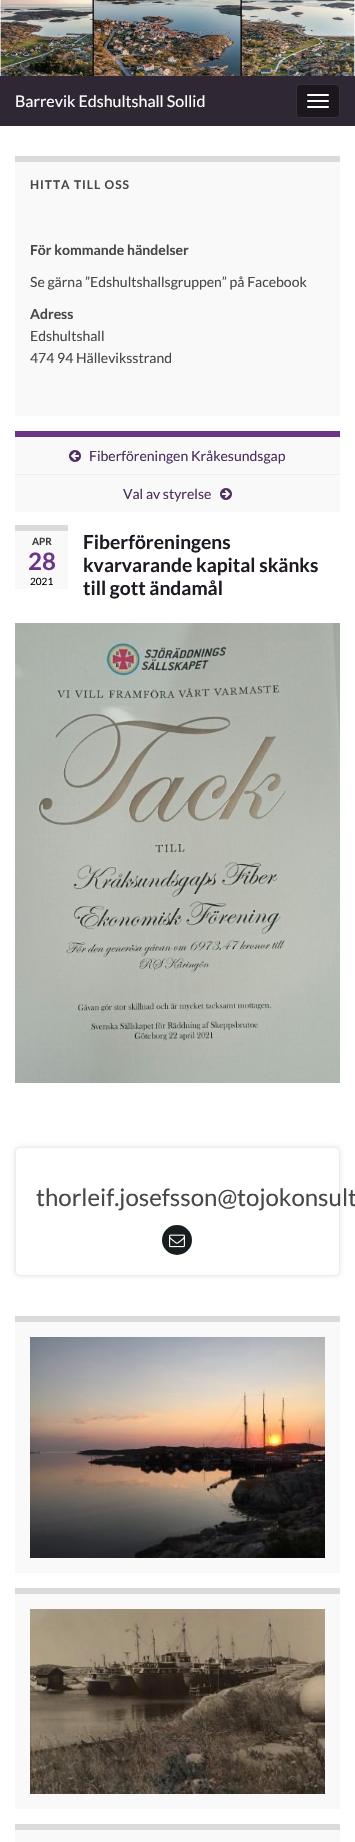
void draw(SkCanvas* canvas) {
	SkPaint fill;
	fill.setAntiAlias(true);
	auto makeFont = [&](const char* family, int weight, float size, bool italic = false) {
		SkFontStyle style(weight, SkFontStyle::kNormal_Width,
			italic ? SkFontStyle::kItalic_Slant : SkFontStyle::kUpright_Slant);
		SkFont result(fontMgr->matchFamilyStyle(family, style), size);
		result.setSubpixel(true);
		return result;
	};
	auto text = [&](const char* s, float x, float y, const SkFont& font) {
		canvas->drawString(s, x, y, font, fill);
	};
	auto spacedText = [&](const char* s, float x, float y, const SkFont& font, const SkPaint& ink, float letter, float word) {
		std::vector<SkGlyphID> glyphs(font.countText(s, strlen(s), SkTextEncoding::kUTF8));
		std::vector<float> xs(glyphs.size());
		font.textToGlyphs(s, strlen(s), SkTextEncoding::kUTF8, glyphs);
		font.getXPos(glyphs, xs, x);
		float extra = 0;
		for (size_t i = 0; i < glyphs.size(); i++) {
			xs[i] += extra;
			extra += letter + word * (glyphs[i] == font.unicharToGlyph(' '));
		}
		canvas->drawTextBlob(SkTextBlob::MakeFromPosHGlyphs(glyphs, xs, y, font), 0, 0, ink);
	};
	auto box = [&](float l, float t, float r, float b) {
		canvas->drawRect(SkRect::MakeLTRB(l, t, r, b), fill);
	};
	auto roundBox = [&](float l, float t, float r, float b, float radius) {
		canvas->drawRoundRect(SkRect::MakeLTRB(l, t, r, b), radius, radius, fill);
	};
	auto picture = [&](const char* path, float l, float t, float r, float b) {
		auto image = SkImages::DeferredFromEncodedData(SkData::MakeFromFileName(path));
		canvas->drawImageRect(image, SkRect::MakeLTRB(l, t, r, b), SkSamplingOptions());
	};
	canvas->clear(0xFFFFFFFF);
	picture("image0.png", 0, 0, 355, 76);
	fill.setColor(0xFF2F2733);
	box(0, 76, 355, 126);
	fill.setColor(0xFF1C171F);
	canvas->drawRoundRect(SkRect::MakeLTRB(296.5f, 84.5f, 339.5f, 117.5f), 3.5f, 3.5f, fill);
	fill.setStyle(SkPaint::kStroke_Style);
	fill.setStrokeWidth(1);
	fill.setColor(0xFF333333);
	canvas->drawRoundRect(SkRect::MakeLTRB(296.5f, 84.5f, 339.5f, 117.5f), 3.5f, 3.5f, fill);
	fill.setStyle(SkPaint::kFill_Style);
	fill.setColor(0xFFFFFFFF);
	roundBox(307, 94, 329, 96, 1);
	roundBox(307, 100, 329, 102, 1);
	roundBox(307, 106, 329, 108, 1);
	fill.setColor(0xFFF9F9F9);
	box(15, 162, 340, 416);
	fill.setColor(0xFFDBDBDB);
	box(15, 156, 340, 162);
	fill.setColor(0xFFF9F9F9);
	box(15, 437, 340, 512);
	fill.setColor(0xFF6B3589);
	box(15, 431, 340, 437);
	picture("image1.png", 69, 450, 81, 462);
	fill.setColor(0xFFEEEEEE);
	box(15, 474, 340, 475);
	picture("image2.png", 220, 488, 232, 500);
	fill.setColor(0xFFF9F9F9);
	box(15, 531, 68, 589);
	fill.setColor(0xFFDBDBDB);
	box(15, 525, 68, 531);
	picture("image3.png", 15, 623, 340, 1083);
	fill.setColor(0x1A000000);
	fill.setMaskFilter(SkMaskFilter::MakeBlur(kNormal_SkBlurStyle, 2.5f));
	canvas->drawRoundRect(SkRect::MakeLTRB(15, 1147, 340, 1276), 5, 5, fill);
	fill.setMaskFilter(nullptr);
	fill.setColor(0xFFFFFFFF);
	canvas->drawRoundRect(SkRect::MakeLTRB(15.5f, 1147.5f, 339.5f, 1275.5f), 4.5f, 4.5f, fill);
	fill.setStyle(SkPaint::kStroke_Style);
	fill.setColor(0xFFEBEDF0);
	canvas->drawRoundRect(SkRect::MakeLTRB(15.5f, 1147.5f, 339.5f, 1275.5f), 4.5f, 4.5f, fill);
	fill.setStyle(SkPaint::kFill_Style);
	fill.setColor(0xFF181E1F);
	canvas->drawCircle(177, 1240, 15, fill);
	picture("image4.png", 169, 1234, 185, 1248);
	fill.setColor(0xFFF9F9F9);
	box(15, 1322, 340, 1573);
	fill.setColor(0xFFDBDBDB);
	box(15, 1316, 340, 1322);
	picture("image5.png", 30, 1337, 325, 1558);
	fill.setColor(0xFFF9F9F9);
	box(15, 1594, 340, 1809);
	fill.setColor(0xFFDBDBDB);
	box(15, 1588, 340, 1594);
	picture("image6.png", 30, 1609, 325, 1794);
	fill.setColor(0xFFF9F9F9);
	box(15, 1830, 340, 1842);
	fill.setColor(0xFFDBDBDB);
	box(15, 1824, 340, 1830);
	auto font1 = makeFont("Lato", 400, 16);
	fill.setColor(0xFFFFFFFF);
	text("Barrevik Edshultshall Sollid", 15, 107, font1);
	auto font2 = makeFont("Lato", 700, 12);
	fill.setColor(0xFF4A474B);
	spacedText("HITTA TILL OSS", 30, 189, font2, fill, 1, 0);
	auto font3 = makeFont("Lato", 700, 14);
	text("För kommande händelser", 30, 255, font3);
	auto font4 = makeFont("Lato", 400, 14);
	text("Se gärna ”Edshultshallsgruppen” på Facebook", 30, 287, font4);
	text("Adress", 30, 319, font3);
	text("Edshultshall", 30, 341, font4);
	text("474 94 Hälleviksstrand", 30, 363, font4);
	fill.setColor(0xFF4E305E);
	text("Fiberföreningen Kråkesundsgap", 89, 461, font4);
	text("Val av styrelse", 123, 499, font4);
	auto font5 = makeFont("Lato", 700, 10);
	fill.setColor(0xFF3B383D);
	text("APR", 32, 545, font5);
	auto font6 = makeFont("Lato", 700, 24);
	fill.setColor(0xFF6B3589);
	text("28", 28, 570, font6);
	auto font7 = makeFont("Lato", 400, 10);
	fill.setColor(0xFF000000);
	text("2021", 30, 585, font7);
	auto font8 = makeFont("Lato", 700, 19.25f);
	fill.setColor(0xFF1F1A22);
	text("Fiberföreningens", 83, 549, font8);
	text("kvarvarande kapital skänks", 83, 572, font8);
	text("till gott ändamål", 83, 595, font8);
	auto font9 = makeFont("Lato", 400, 24);
	fill.setColor(0xFF4A474B);
	text("thorleif.josefsson@tojokonsult", 36, 1206, font9);
}
